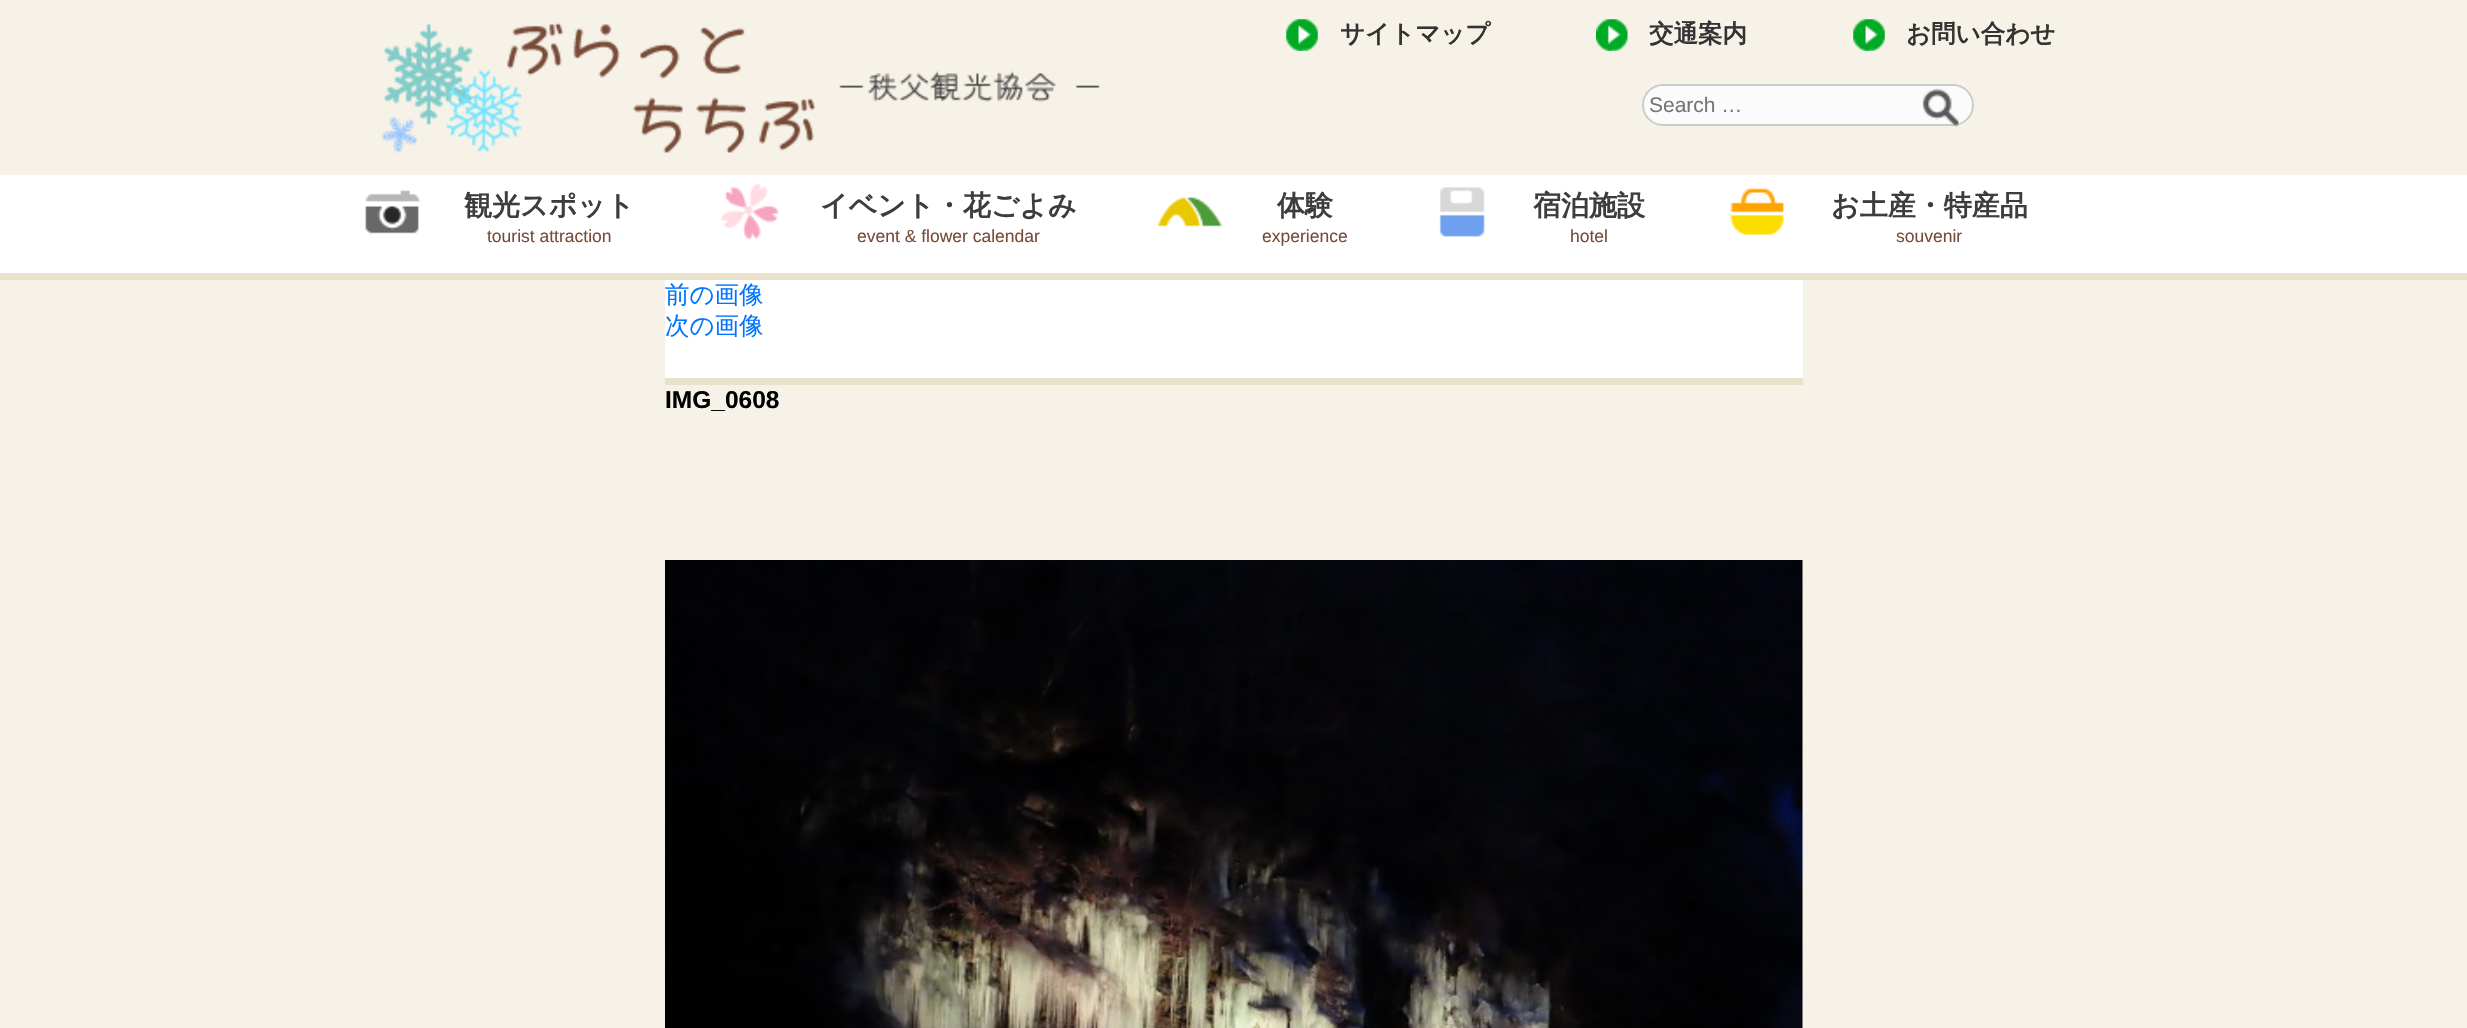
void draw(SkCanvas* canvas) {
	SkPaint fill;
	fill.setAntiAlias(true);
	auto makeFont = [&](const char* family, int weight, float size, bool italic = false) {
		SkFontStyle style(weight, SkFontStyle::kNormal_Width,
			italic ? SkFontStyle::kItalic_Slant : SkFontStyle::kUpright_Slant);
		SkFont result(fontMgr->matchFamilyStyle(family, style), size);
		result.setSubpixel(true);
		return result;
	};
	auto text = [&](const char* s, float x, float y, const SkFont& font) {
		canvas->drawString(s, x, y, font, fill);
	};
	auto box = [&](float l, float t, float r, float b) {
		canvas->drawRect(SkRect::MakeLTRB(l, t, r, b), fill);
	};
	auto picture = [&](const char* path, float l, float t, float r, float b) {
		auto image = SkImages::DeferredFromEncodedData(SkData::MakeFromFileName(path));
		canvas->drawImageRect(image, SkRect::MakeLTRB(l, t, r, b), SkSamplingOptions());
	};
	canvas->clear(0xFFF7F2E8);
	picture("image0.png", 381, 22, 1100, 153);
	picture("image1.png", 1286, 19, 1318, 51);
	picture("image2.png", 1596, 19, 1628, 51);
	picture("image1.png", 1853, 19, 1885, 51);
	fill.setColor(0xFFFBFBFB);
	canvas->drawRoundRect(SkRect::MakeLTRB(1643, 85, 1973, 125), 20, 20, fill);
	fill.setStyle(SkPaint::kStroke_Style);
	fill.setStrokeWidth(2);
	fill.setColor(0xFFCCCCCC);
	canvas->drawRoundRect(SkRect::MakeLTRB(1643, 85, 1973, 125), 20, 20, fill);
	picture("image3.png", 1922, 88, 1959, 127);
	fill.setStyle(SkPaint::kFill_Style);
	fill.setColor(0xFFFFFFFF);
	box(0, 175, 2467, 273);
	fill.setColor(0xFFEAE1CC);
	box(0, 273, 2467, 280);
	picture("image4.png", 365, 190, 421, 234);
	picture("image5.png", 721, 183, 779, 240);
	picture("image6.png", 1157, 197, 1222, 227);
	picture("image7.png", 1439, 187, 1485, 237);
	picture("image8.png", 1730, 188, 1784, 235);
	fill.setColor(0xFFFFFFFF);
	box(665, 280, 1803, 378);
	fill.setColor(0xFFEAE1CC);
	box(665, 378, 1803, 385);
	picture("image9.png", 665, 560, 1803, 1028);
	auto font1 = makeFont("WenQuanYi Zen Hei", 700, 24.5f);
	fill.setColor(0xFF333333);
	text("サイトマップ", 1340, 42, font1);
	text("交通案内", 1649, 42, font1);
	text("お問い合わせ", 1906, 42, font1);
	auto font2 = makeFont("Liberation Sans", 400, 21);
	fill.setColor(0xFF757575);
	text("Search …", 1649, 112, font2);
	auto font3 = makeFont("WenQuanYi Zen Hei", 700, 28);
	fill.setColor(0xFF3D3D3D);
	text("観光スポット", 464, 215, font3);
	auto font4 = makeFont("Liberation Sans", 400, 17.5f);
	fill.setColor(0xFF774B38);
	text("tourist attraction", 487, 242, font4);
	fill.setColor(0xFF3D3D3D);
	text("イベント・花ごよみ", 820, 215, font3);
	fill.setColor(0xFF774B38);
	text("event & flower calendar", 857, 242, font4);
	fill.setColor(0xFF3D3D3D);
	text("体験", 1277, 215, font3);
	fill.setColor(0xFF774B38);
	text("experience", 1262, 242, font4);
	fill.setColor(0xFF3D3D3D);
	text("宿泊施設", 1533, 215, font3);
	fill.setColor(0xFF774B38);
	text("hotel", 1570, 242, font4);
	fill.setColor(0xFF3D3D3D);
	text("お土産・特産品", 1831, 215, font3);
	fill.setColor(0xFF774B38);
	text("souvenir", 1896, 242, font4);
	auto font5 = makeFont("WenQuanYi Zen Hei", 500, 24.5f);
	fill.setColor(0xFF0074FF);
	text("前の画像", 665, 303, font5);
	text("次の画像", 665, 334, font5);
	auto font6 = makeFont("Liberation Sans", 700, 24.5f);
	fill.setColor(0xFF000000);
	text("IMG_0608", 665, 408, font6);
}
